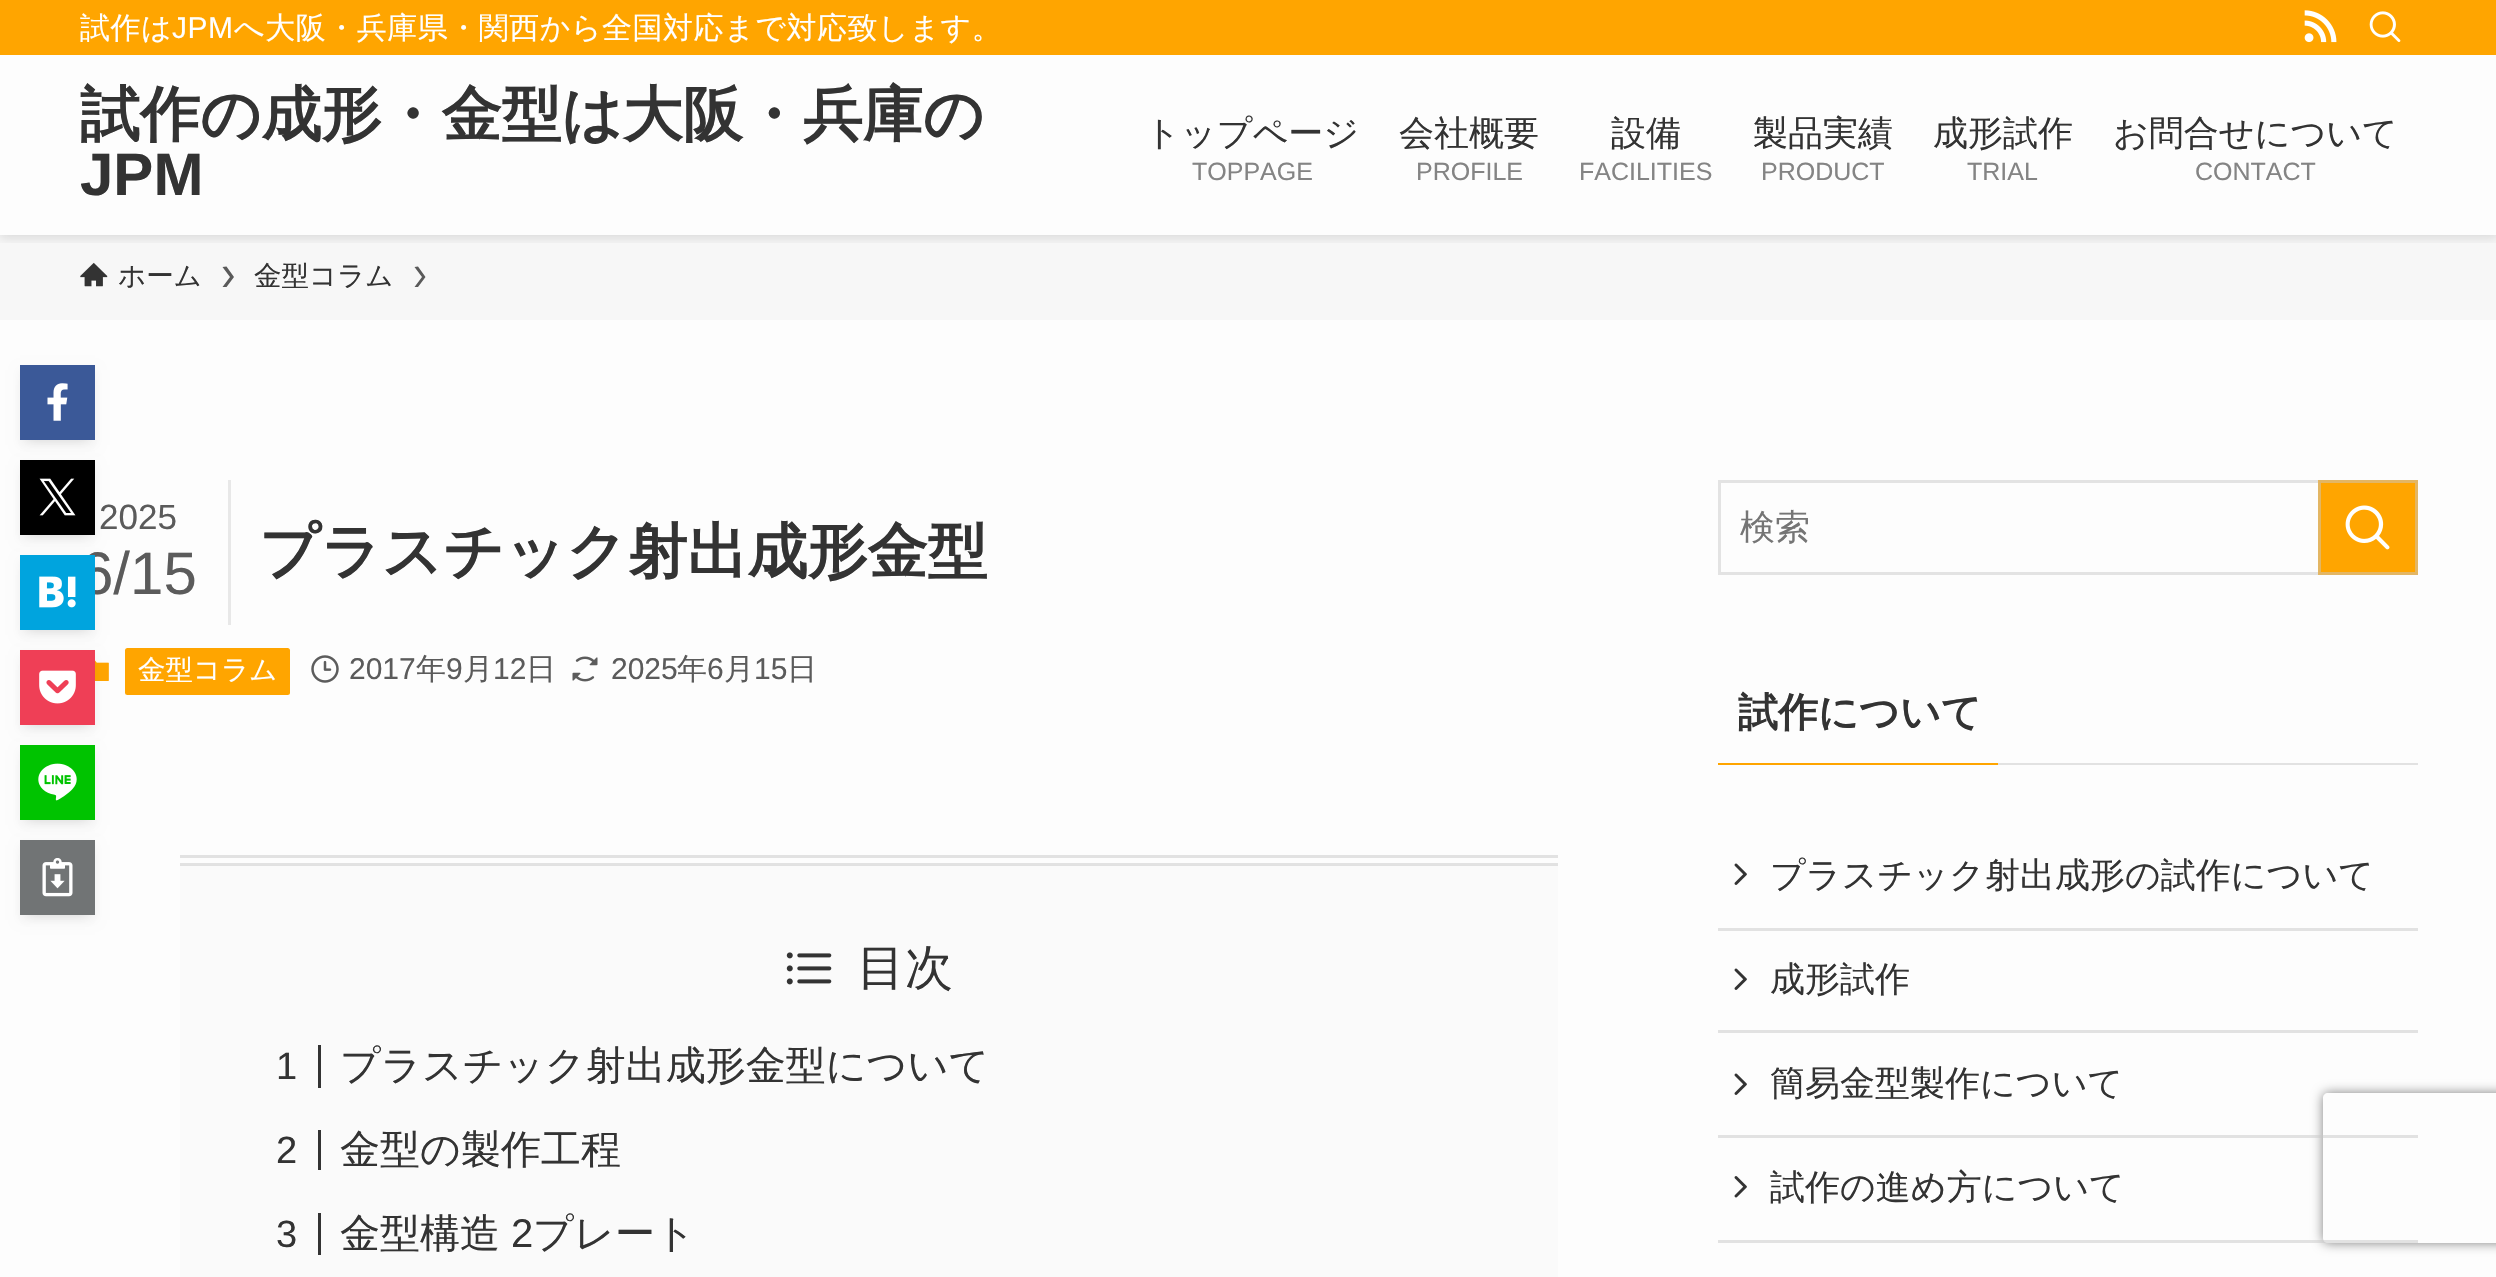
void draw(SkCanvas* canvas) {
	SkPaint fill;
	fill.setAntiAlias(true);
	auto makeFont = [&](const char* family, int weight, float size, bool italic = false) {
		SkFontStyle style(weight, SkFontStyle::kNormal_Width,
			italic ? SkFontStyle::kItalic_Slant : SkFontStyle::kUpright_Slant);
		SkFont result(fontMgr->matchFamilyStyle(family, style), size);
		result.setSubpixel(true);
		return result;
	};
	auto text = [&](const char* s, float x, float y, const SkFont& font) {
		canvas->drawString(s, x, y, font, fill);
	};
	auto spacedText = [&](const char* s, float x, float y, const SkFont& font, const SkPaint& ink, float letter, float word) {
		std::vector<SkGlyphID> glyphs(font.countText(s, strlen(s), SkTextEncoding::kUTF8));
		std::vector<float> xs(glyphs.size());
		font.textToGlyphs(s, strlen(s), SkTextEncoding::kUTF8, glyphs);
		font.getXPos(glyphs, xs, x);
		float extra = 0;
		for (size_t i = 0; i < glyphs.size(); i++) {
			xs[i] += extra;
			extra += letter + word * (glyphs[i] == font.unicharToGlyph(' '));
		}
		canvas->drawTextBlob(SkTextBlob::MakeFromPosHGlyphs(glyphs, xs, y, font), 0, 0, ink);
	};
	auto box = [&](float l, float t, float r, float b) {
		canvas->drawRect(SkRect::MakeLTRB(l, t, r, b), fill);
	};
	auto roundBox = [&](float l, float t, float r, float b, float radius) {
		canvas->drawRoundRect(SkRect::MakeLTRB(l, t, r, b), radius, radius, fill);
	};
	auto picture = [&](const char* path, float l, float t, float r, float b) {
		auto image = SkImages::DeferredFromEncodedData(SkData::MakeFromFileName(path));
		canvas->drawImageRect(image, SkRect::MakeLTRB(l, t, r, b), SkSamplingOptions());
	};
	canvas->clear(0xFFFDFDFD);
	fill.setColor(0xFFE2E2E2);
	box(180, 863, 1558, 865);
	fill.setColor(0xFFF7F7F7);
	box(0, 235, 2496, 320);
	canvas->save();
	canvas->clipRect(SkRect::MakeLTRB(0, 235, 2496, 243));
	fill.setColor(0x1F000000);
	fill.setMaskFilter(SkMaskFilter::MakeBlur(kNormal_SkBlurStyle, 5));
	canvas->drawRect(SkRect::MakeLTRB(0, 3, 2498, 238), fill);
	fill.setMaskFilter(nullptr);
	canvas->restore();
	fill.setColor(0xFFFFA500);
	box(0, 0, 2496, 55);
	picture("image0.png", 2304, 10, 2337, 43);
	picture("image1.png", 2369, 11, 2401, 42);
	picture("image2.png", 80, 262, 108, 287);
	fill.setColor(0xFF5A5A5A);
	canvas->drawPath(SkPathBuilder().moveTo(226.5f, 266.5f).lineTo(222.5f, 267).lineTo(230, 277).lineTo(222.5f, 287).lineTo(226.5f, 287).lineTo(234, 277).close().detach(), fill);
	canvas->drawPath(SkPathBuilder().moveTo(418, 266.5f).lineTo(414.5f, 267).lineTo(422, 277).lineTo(414.5f, 287).lineTo(418, 287).lineTo(425.5f, 277).close().detach(), fill);
	fill.setColor(0x1A000000);
	fill.setMaskFilter(SkMaskFilter::MakeBlur(kNormal_SkBlurStyle, 5));
	canvas->drawRect(SkRect::MakeLTRB(30, 385, 85, 440), fill);
	fill.setMaskFilter(nullptr);
	fill.setColor(0x0D000000);
	fill.setMaskFilter(SkMaskFilter::MakeBlur(kNormal_SkBlurStyle, 5));
	canvas->drawRect(SkRect::MakeLTRB(20, 370, 95, 445), fill);
	fill.setMaskFilter(nullptr);
	fill.setColor(0xFF3B5998);
	box(20, 365, 95, 440);
	picture("image3.png", 47, 383, 68, 421);
	fill.setColor(0x1A000000);
	fill.setMaskFilter(SkMaskFilter::MakeBlur(kNormal_SkBlurStyle, 5));
	canvas->drawRect(SkRect::MakeLTRB(30, 480, 85, 535), fill);
	fill.setMaskFilter(nullptr);
	fill.setColor(0x0D000000);
	fill.setMaskFilter(SkMaskFilter::MakeBlur(kNormal_SkBlurStyle, 5));
	canvas->drawRect(SkRect::MakeLTRB(20, 465, 95, 540), fill);
	fill.setMaskFilter(nullptr);
	fill.setColor(0xFF000000);
	box(20, 460, 95, 535);
	picture("image4.png", 39, 478, 76, 516);
	fill.setColor(0x1A000000);
	fill.setMaskFilter(SkMaskFilter::MakeBlur(kNormal_SkBlurStyle, 5));
	canvas->drawRect(SkRect::MakeLTRB(30, 575, 85, 630), fill);
	fill.setMaskFilter(nullptr);
	fill.setColor(0x0D000000);
	fill.setMaskFilter(SkMaskFilter::MakeBlur(kNormal_SkBlurStyle, 5));
	canvas->drawRect(SkRect::MakeLTRB(20, 560, 95, 635), fill);
	fill.setMaskFilter(nullptr);
	picture("image9.png", 95, 660, 109, 681);
	fill.setColor(0x1A000000);
	fill.setMaskFilter(SkMaskFilter::MakeBlur(kNormal_SkBlurStyle, 5));
	canvas->drawRect(SkRect::MakeLTRB(30, 670, 85, 725), fill);
	fill.setMaskFilter(nullptr);
	fill.setColor(0x0D000000);
	fill.setMaskFilter(SkMaskFilter::MakeBlur(kNormal_SkBlurStyle, 5));
	canvas->drawRect(SkRect::MakeLTRB(20, 655, 95, 730), fill);
	fill.setMaskFilter(nullptr);
	fill.setColor(0xFFEF3F56);
	box(20, 650, 95, 725);
	picture("image6.png", 39, 670, 76, 704);
	fill.setColor(0x1A000000);
	fill.setMaskFilter(SkMaskFilter::MakeBlur(kNormal_SkBlurStyle, 5));
	canvas->drawRect(SkRect::MakeLTRB(30, 765, 85, 820), fill);
	fill.setMaskFilter(nullptr);
	fill.setColor(0x0D000000);
	fill.setMaskFilter(SkMaskFilter::MakeBlur(kNormal_SkBlurStyle, 5));
	canvas->drawRect(SkRect::MakeLTRB(20, 750, 95, 825), fill);
	fill.setMaskFilter(nullptr);
	fill.setColor(0xFF00C300);
	box(20, 745, 95, 820);
	picture("image7.png", 38, 763, 77, 801);
	fill.setColor(0x1A000000);
	fill.setMaskFilter(SkMaskFilter::MakeBlur(kNormal_SkBlurStyle, 5));
	canvas->drawRect(SkRect::MakeLTRB(30, 860, 85, 915), fill);
	fill.setMaskFilter(nullptr);
	fill.setColor(0x0D000000);
	fill.setMaskFilter(SkMaskFilter::MakeBlur(kNormal_SkBlurStyle, 5));
	canvas->drawRect(SkRect::MakeLTRB(20, 845, 95, 920), fill);
	fill.setMaskFilter(nullptr);
	fill.setColor(0xFF717475);
	box(20, 840, 95, 915);
	picture("image8.png", 42, 858, 73, 897);
	fill.setColor(0xFFE8E8E8);
	box(228, 480, 231, 625);
	fill.setColor(0xFFFFA500);
	roundBox(125, 648, 290, 695, 2.5f);
	picture("image10.png", 311, 655, 339, 683);
	picture("image11.png", 572, 656, 598, 682);
	fill.setColor(0xFFFAFAFA);
	box(180, 866, 1558, 1277);
	fill.setColor(0xFFE1E1E1);
	box(180, 865, 1558, 866);
	fill.setColor(0xFFE2E2E2);
	box(180, 855, 1558, 858);
	picture("image12.png", 786, 952, 832, 985);
	fill.setColor(0xFF333333);
	box(318, 1045, 321, 1088);
	box(318, 1130, 321, 1170);
	box(318, 1213, 321, 1255);
	fill.setStyle(SkPaint::kStroke_Style);
	fill.setStrokeWidth(3);
	fill.setColor(0xFFE3E3E3);
	canvas->drawRect(SkRect::MakeLTRB(1719.5f, 481.5f, 2416.5f, 573.5f), fill);
	fill.setStyle(SkPaint::kFill_Style);
	fill.setColor(0xFFFFA500);
	canvas->drawRect(SkRect::MakeLTRB(2319.5f, 481.5f, 2416.5f, 573.5f), fill);
	fill.setStyle(SkPaint::kStroke_Style);
	fill.setColor(0xFFE3B664);
	canvas->drawRect(SkRect::MakeLTRB(2319.5f, 481.5f, 2416.5f, 573.5f), fill);
	picture("image13.png", 2345, 505, 2390, 550);
	fill.setStyle(SkPaint::kFill_Style);
	fill.setColor(0xFFFFA500);
	box(1718, 763, 1998, 765);
	fill.setColor(0xFFE2E2E2);
	box(1998, 763, 2418, 765);
	box(1718, 928, 2418, 931);
	picture("image14.png", 1734, 863, 1747, 885);
	box(1718, 1030, 2418, 1033);
	picture("image14.png", 1734, 968, 1747, 990);
	canvas->save();
	canvas->clipPath(SkPathBuilder(SkPathFillType::kEvenOdd).moveTo(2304, 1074).lineTo(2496, 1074).lineTo(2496, 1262).lineTo(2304, 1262).close().moveTo(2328, 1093).lineTo(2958, 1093).cubicTo(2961, 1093, 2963, 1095, 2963, 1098).lineTo(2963, 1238).cubicTo(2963, 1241, 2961, 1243, 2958, 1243).lineTo(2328, 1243).cubicTo(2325, 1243, 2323, 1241, 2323, 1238).lineTo(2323, 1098).cubicTo(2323, 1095, 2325, 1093, 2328, 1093).close().detach(), true);
	fill.setColor(0xFF808080);
	fill.setMaskFilter(SkMaskFilter::MakeBlur(kNormal_SkBlurStyle, 6));
	canvas->drawRoundRect(SkRect::MakeLTRB(2323, 1093, 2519, 1243), 5, 5, fill);
	fill.setMaskFilter(nullptr);
	canvas->restore();
	fill.setColor(0x80C7C7C7);
	box(1718, 1135, 2418, 1138);
	picture("image14.png", 1734, 1073, 1747, 1095);
	box(1718, 1240, 2418, 1243);
	picture("image15.png", 1734, 1176, 1747, 1198);
	auto font1 = makeFont("WenQuanYi Zen Hei", 500, 30);
	fill.setColor(0xFFFFFFFF);
	spacedText("試作は", 80, 38, font1, fill, 0.5f, 0);
	auto font2 = makeFont("Liberation Sans", 400, 30);
	spacedText("JPM", 172, 38, font2, fill, 0.5f, 0);
	spacedText("へ大阪・兵庫県・関西から全国対応まで対応致します。", 234, 38, font1, fill, 0.5f, 0);
	auto font3 = makeFont("WenQuanYi Zen Hei", 700, 60);
	fill.setColor(0xFF333333);
	text("試作の成形・金型は大阪・兵庫の", 80, 135, font3);
	auto font4 = makeFont("Liberation Sans", 700, 60);
	text("JPM", 80, 195, font4);
	auto font5 = makeFont("WenQuanYi Zen Hei", 500, 35);
	text("トップページ", 1145, 145, font5);
	auto font6 = makeFont("Liberation Sans", 400, 25);
	fill.setColor(0xFF848484);
	text("TOPPAGE", 1192, 180, font6);
	fill.setColor(0xFF333333);
	text("会社概要", 1399, 145, font5);
	fill.setColor(0xFF848484);
	text("PROFILE", 1416, 180, font6);
	fill.setColor(0xFF333333);
	text("設備", 1611, 145, font5);
	fill.setColor(0xFF848484);
	text("FACILITIES", 1579, 180, font6);
	fill.setColor(0xFF333333);
	text("製品実績", 1753, 145, font5);
	fill.setColor(0xFF848484);
	text("PRODUCT", 1761, 180, font6);
	fill.setColor(0xFF333333);
	text("成形試作", 1933, 145, font5);
	fill.setColor(0xFF848484);
	text("TRIAL", 1967, 180, font6);
	fill.setColor(0xFF333333);
	text("お問合せについて", 2113, 145, font5);
	fill.setColor(0xFF848484);
	text("CONTACT", 2195, 180, font6);
	auto font7 = makeFont("WenQuanYi Zen Hei", 500, 27.5f);
	fill.setColor(0xFF333333);
	text("ホーム", 118, 285, font7);
	text("金型コラム", 254, 285, font7);
	auto font8 = makeFont("Liberation Sans", 400, 35);
	fill.setColor(0xFF5B5B5B);
	text("2025", 99, 529, font8);
	auto font9 = makeFont("Liberation Sans", 400, 60);
	text("6/15", 80, 594, font9);
	fill.setColor(0xFF00A4DE);
	box(20, 555, 95, 630);
	picture("image5.png", 39, 576, 76, 608);
	fill.setColor(0xFF333333);
	text("プラスチック射出成形金型", 259, 572, font3);
	fill.setColor(0xFFFFFFFF);
	text("金型コラム", 138, 679, font7);
	fill.setColor(0xFF5B5B5B);
	text("2017", 349, 679, font2);
	text("年", 416, 679, font1);
	text("9", 446, 679, font2);
	text("月", 463, 679, font1);
	text("12", 493, 679, font2);
	text("日", 526, 679, font1);
	text("2025", 611, 679, font2);
	text("年", 677, 679, font1);
	text("6", 707, 679, font2);
	text("月", 724, 679, font1);
	text("15", 754, 679, font2);
	text("日", 787, 679, font1);
	auto font10 = makeFont("WenQuanYi Zen Hei", 500, 48);
	fill.setColor(0xFF333333);
	text("目次", 857, 984, font10);
	auto font11 = makeFont("Liberation Sans", 400, 38);
	text("1", 276, 1079, font11);
	auto font12 = makeFont("WenQuanYi Zen Hei", 500, 40);
	text("プラスチック射出成形金型について", 340, 1079, font12);
	text("2", 276, 1163, font11);
	text("金型の製作工程", 340, 1163, font12);
	text("3", 276, 1247, font11);
	text("金型構造", 340, 1247, font12);
	auto font13 = makeFont("Liberation Sans", 400, 40);
	text("2", 511, 1247, font13);
	text("プレート", 533, 1247, font12);
	fill.setColor(0xFF757575);
	text("検索", 1740, 539, font5);
	auto font14 = makeFont("WenQuanYi Zen Hei", 700, 40);
	fill.setColor(0xFF333333);
	text("試作について", 1738, 726, font14);
	text("プラスチック射出成形の試作について", 1770, 887, font5);
	text("成形試作", 1770, 991, font5);
	text("簡易金型製作について", 1770, 1095, font5);
	text("試作の進め方について", 1770, 1199, font5);
}
